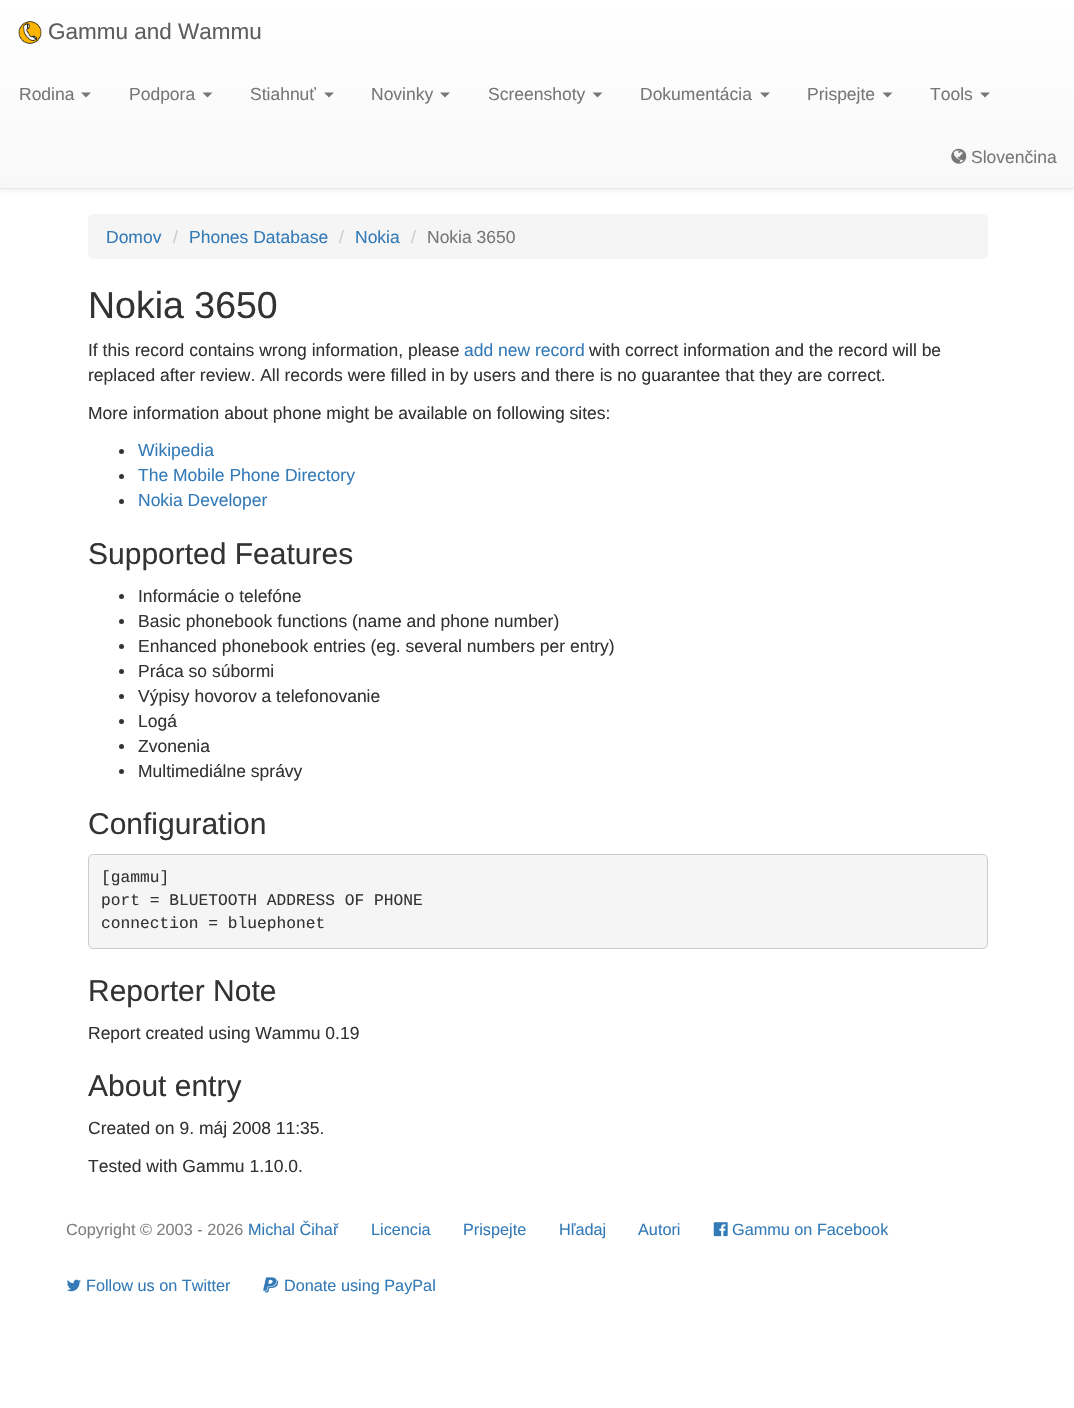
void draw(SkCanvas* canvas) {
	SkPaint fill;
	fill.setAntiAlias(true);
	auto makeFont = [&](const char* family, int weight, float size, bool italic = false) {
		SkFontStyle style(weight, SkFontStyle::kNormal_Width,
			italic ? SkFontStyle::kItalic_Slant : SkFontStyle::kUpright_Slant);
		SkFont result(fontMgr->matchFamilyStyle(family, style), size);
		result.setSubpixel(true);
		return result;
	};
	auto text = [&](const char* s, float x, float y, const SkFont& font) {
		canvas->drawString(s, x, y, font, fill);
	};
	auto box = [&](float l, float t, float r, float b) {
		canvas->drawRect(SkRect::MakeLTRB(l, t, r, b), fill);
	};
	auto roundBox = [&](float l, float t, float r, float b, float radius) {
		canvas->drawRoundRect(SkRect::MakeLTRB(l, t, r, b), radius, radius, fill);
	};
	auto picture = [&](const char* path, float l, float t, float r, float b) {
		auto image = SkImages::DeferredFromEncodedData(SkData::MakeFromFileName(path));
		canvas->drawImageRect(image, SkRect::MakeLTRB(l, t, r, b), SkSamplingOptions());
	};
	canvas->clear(0xFFFFFFFF);
	fill.setColor(0x12000000);
	fill.setMaskFilter(SkMaskFilter::MakeBlur(kNormal_SkBlurStyle, 3));
	canvas->drawRect(SkRect::MakeLTRB(0, 1, 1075, 190), fill);
	fill.setMaskFilter(nullptr);
	{
		const SkColor colors[] = {0xFFFFFFFF, 0xFFF8F8F8};
		const float stops[] = {0, 1};
		const SkPoint ends[] = {{538, 0}, {538, 188}};
		fill.setShader(SkGradientShader::MakeLinear(ends, colors, stops, 2, SkTileMode::kClamp));
		fill.setAlpha(255);
	}
	box(0, 0, 1074, 188);
	fill.setShader(nullptr);
	fill.setColor(0xFFE7E7E7);
	box(0, 188, 1074, 189);
	picture("image0.png", 18, 21, 42, 44);
	fill.setColor(0xFF777777);
	canvas->drawPath(SkPathBuilder().moveTo(81, 92.5f).lineTo(91, 92.5f).lineTo(86, 97.5f).close().detach(), fill);
	canvas->drawPath(SkPathBuilder().moveTo(202.5f, 92.5f).lineTo(212.5f, 92.5f).lineTo(207.5f, 97.5f).close().detach(), fill);
	canvas->drawPath(SkPathBuilder().moveTo(324, 92.5f).lineTo(334, 92.5f).lineTo(329, 97.5f).close().detach(), fill);
	canvas->drawPath(SkPathBuilder().moveTo(440, 92.5f).lineTo(450, 92.5f).lineTo(445, 97.5f).close().detach(), fill);
	canvas->drawPath(SkPathBuilder().moveTo(592.5f, 92.5f).lineTo(602.5f, 92.5f).lineTo(597.5f, 97.5f).close().detach(), fill);
	canvas->drawPath(SkPathBuilder().moveTo(760, 92.5f).lineTo(770, 92.5f).lineTo(765, 97.5f).close().detach(), fill);
	canvas->drawPath(SkPathBuilder().moveTo(882.5f, 92.5f).lineTo(892.5f, 92.5f).lineTo(887.5f, 97.5f).close().detach(), fill);
	canvas->drawPath(SkPathBuilder().moveTo(980, 92.5f).lineTo(990, 92.5f).lineTo(985, 97.5f).close().detach(), fill);
	picture("image1.png", 951, 148, 967, 164);
	fill.setColor(0xFFF5F5F5);
	roundBox(88, 214, 988, 259, 5);
	fill.setColor(0xFF333333);
	canvas->drawCircle(121.5f, 451.5f, 2.5f, fill);
	canvas->drawCircle(121.5f, 476.5f, 2.5f, fill);
	canvas->drawCircle(121.5f, 501.5f, 2.5f, fill);
	canvas->drawCircle(121.5f, 596.5f, 2.5f, fill);
	canvas->drawCircle(121.5f, 621.5f, 2.5f, fill);
	canvas->drawCircle(121.5f, 646.5f, 2.5f, fill);
	canvas->drawCircle(121.5f, 671.5f, 2.5f, fill);
	canvas->drawCircle(121.5f, 696.5f, 2.5f, fill);
	canvas->drawCircle(121.5f, 721.5f, 2.5f, fill);
	canvas->drawCircle(121.5f, 746.5f, 2.5f, fill);
	canvas->drawCircle(121.5f, 771.5f, 2.5f, fill);
	fill.setColor(0xFFF5F5F5);
	canvas->drawRoundRect(SkRect::MakeLTRB(88.5f, 854.5f, 987.5f, 948.5f), 4.5f, 4.5f, fill);
	fill.setStyle(SkPaint::kStroke_Style);
	fill.setStrokeWidth(1);
	fill.setColor(0xFFCCCCCC);
	canvas->drawRoundRect(SkRect::MakeLTRB(88.5f, 854.5f, 987.5f, 948.5f), 4.5f, 4.5f, fill);
	picture("image2.png", 713, 1222, 728, 1237);
	picture("image3.png", 67, 1279, 81, 1292);
	picture("image4.png", 263, 1277, 279, 1293);
	auto font1 = makeFont("Liberation Sans", 400, 22.5f);
	fill.setStyle(SkPaint::kFill_Style);
	fill.setColor(0xFF5E5E5E);
	text("Gammu and Wammu", 48, 39, font1);
	auto font2 = makeFont("Liberation Sans", 400, 17.5f);
	fill.setColor(0xFF777777);
	text("Rodina", 19, 100, font2);
	text("Podpora", 129, 100, font2);
	text("Stiahnuť", 250, 100, font2);
	text("Novinky", 371, 100, font2);
	text("Screenshoty", 488, 100, font2);
	text("Dokumentácia", 640, 100, font2);
	text("Prispejte", 807, 100, font2);
	text("Tools", 930, 100, font2);
	text("Slovenčina", 971, 163, font2);
	fill.setColor(0xFF337AB7);
	text("Domov", 106, 243, font2);
	fill.setColor(0xFFCCCCCC);
	text("/", 173, 243, font2);
	fill.setColor(0xFF337AB7);
	text("Phones Database", 189, 243, font2);
	fill.setColor(0xFFCCCCCC);
	text("/", 339, 243, font2);
	fill.setColor(0xFF337AB7);
	text("Nokia", 355, 243, font2);
	fill.setColor(0xFFCCCCCC);
	text("/", 411, 243, font2);
	fill.setColor(0xFF777777);
	text("Nokia 3650", 427, 243, font2);
	auto font3 = makeFont("Liberation Sans", 400, 37.5f);
	fill.setColor(0xFF333333);
	text("Nokia 3650", 88, 318, font3);
	text("If this record contains wrong information, please", 88, 356, font2);
	fill.setColor(0xFF337AB7);
	text("add new record", 464, 356, font2);
	fill.setColor(0xFF333333);
	text("with correct information and the record will be", 589, 356, font2);
	text("replaced after review. All records were filled in by users and there is no guarantee that they are correct.", 88, 381, font2);
	text("More information about phone might be available on following sites:", 88, 419, font2);
	fill.setColor(0xFF337AB7);
	text("Wikipedia", 138, 456, font2);
	text("The Mobile Phone Directory", 138, 481, font2);
	text("Nokia Developer", 138, 506, font2);
	auto font4 = makeFont("Liberation Sans", 400, 30);
	fill.setColor(0xFF333333);
	text("Supported Features", 88, 564, font4);
	text("Informácie o telefóne", 138, 602, font2);
	text("Basic phonebook functions (name and phone number)", 138, 627, font2);
	text("Enhanced phonebook entries (eg. several numbers per entry)", 138, 652, font2);
	text("Práca so súbormi", 138, 677, font2);
	text("Výpisy hovorov a telefonovanie", 138, 702, font2);
	text("Logá", 138, 727, font2);
	text("Zvonenia", 138, 752, font2);
	text("Multimediálne správy", 138, 777, font2);
	text("Configuration", 88, 834, font4);
	auto font5 = makeFont("Liberation Mono", 400, 16.25f);
	text("[gammu]", 101, 882, font5);
	text("port = BLUETOOTH ADDRESS OF PHONE", 101, 905, font5);
	text("connection = bluephonet", 101, 928, font5);
	text("Reporter Note", 88, 1001, font4);
	text("Report created using Wammu 0.19", 88, 1039, font2);
	text("About entry", 88, 1096, font4);
	text("Created on 9. máj 2008 11:35.", 88, 1134, font2);
	text("Tested with Gammu 1.10.0.", 88, 1172, font2);
	auto font6 = makeFont("Liberation Sans", 400, 16.25f);
	fill.setColor(0xFF808080);
	text("Copyright © 2003 - 2026", 66, 1235, font6);
	fill.setColor(0xFF337AB7);
	text("Michal Čihař", 248, 1235, font6);
	text("Licencia", 371, 1235, font6);
	text("Prispejte", 463, 1235, font6);
	text("Hľadaj", 559, 1235, font6);
	text("Autori", 638, 1235, font6);
	text("Gammu on Facebook", 732, 1235, font6);
	text("Follow us on Twitter", 86, 1291, font6);
	text("Donate using PayPal", 284, 1291, font6);
}
